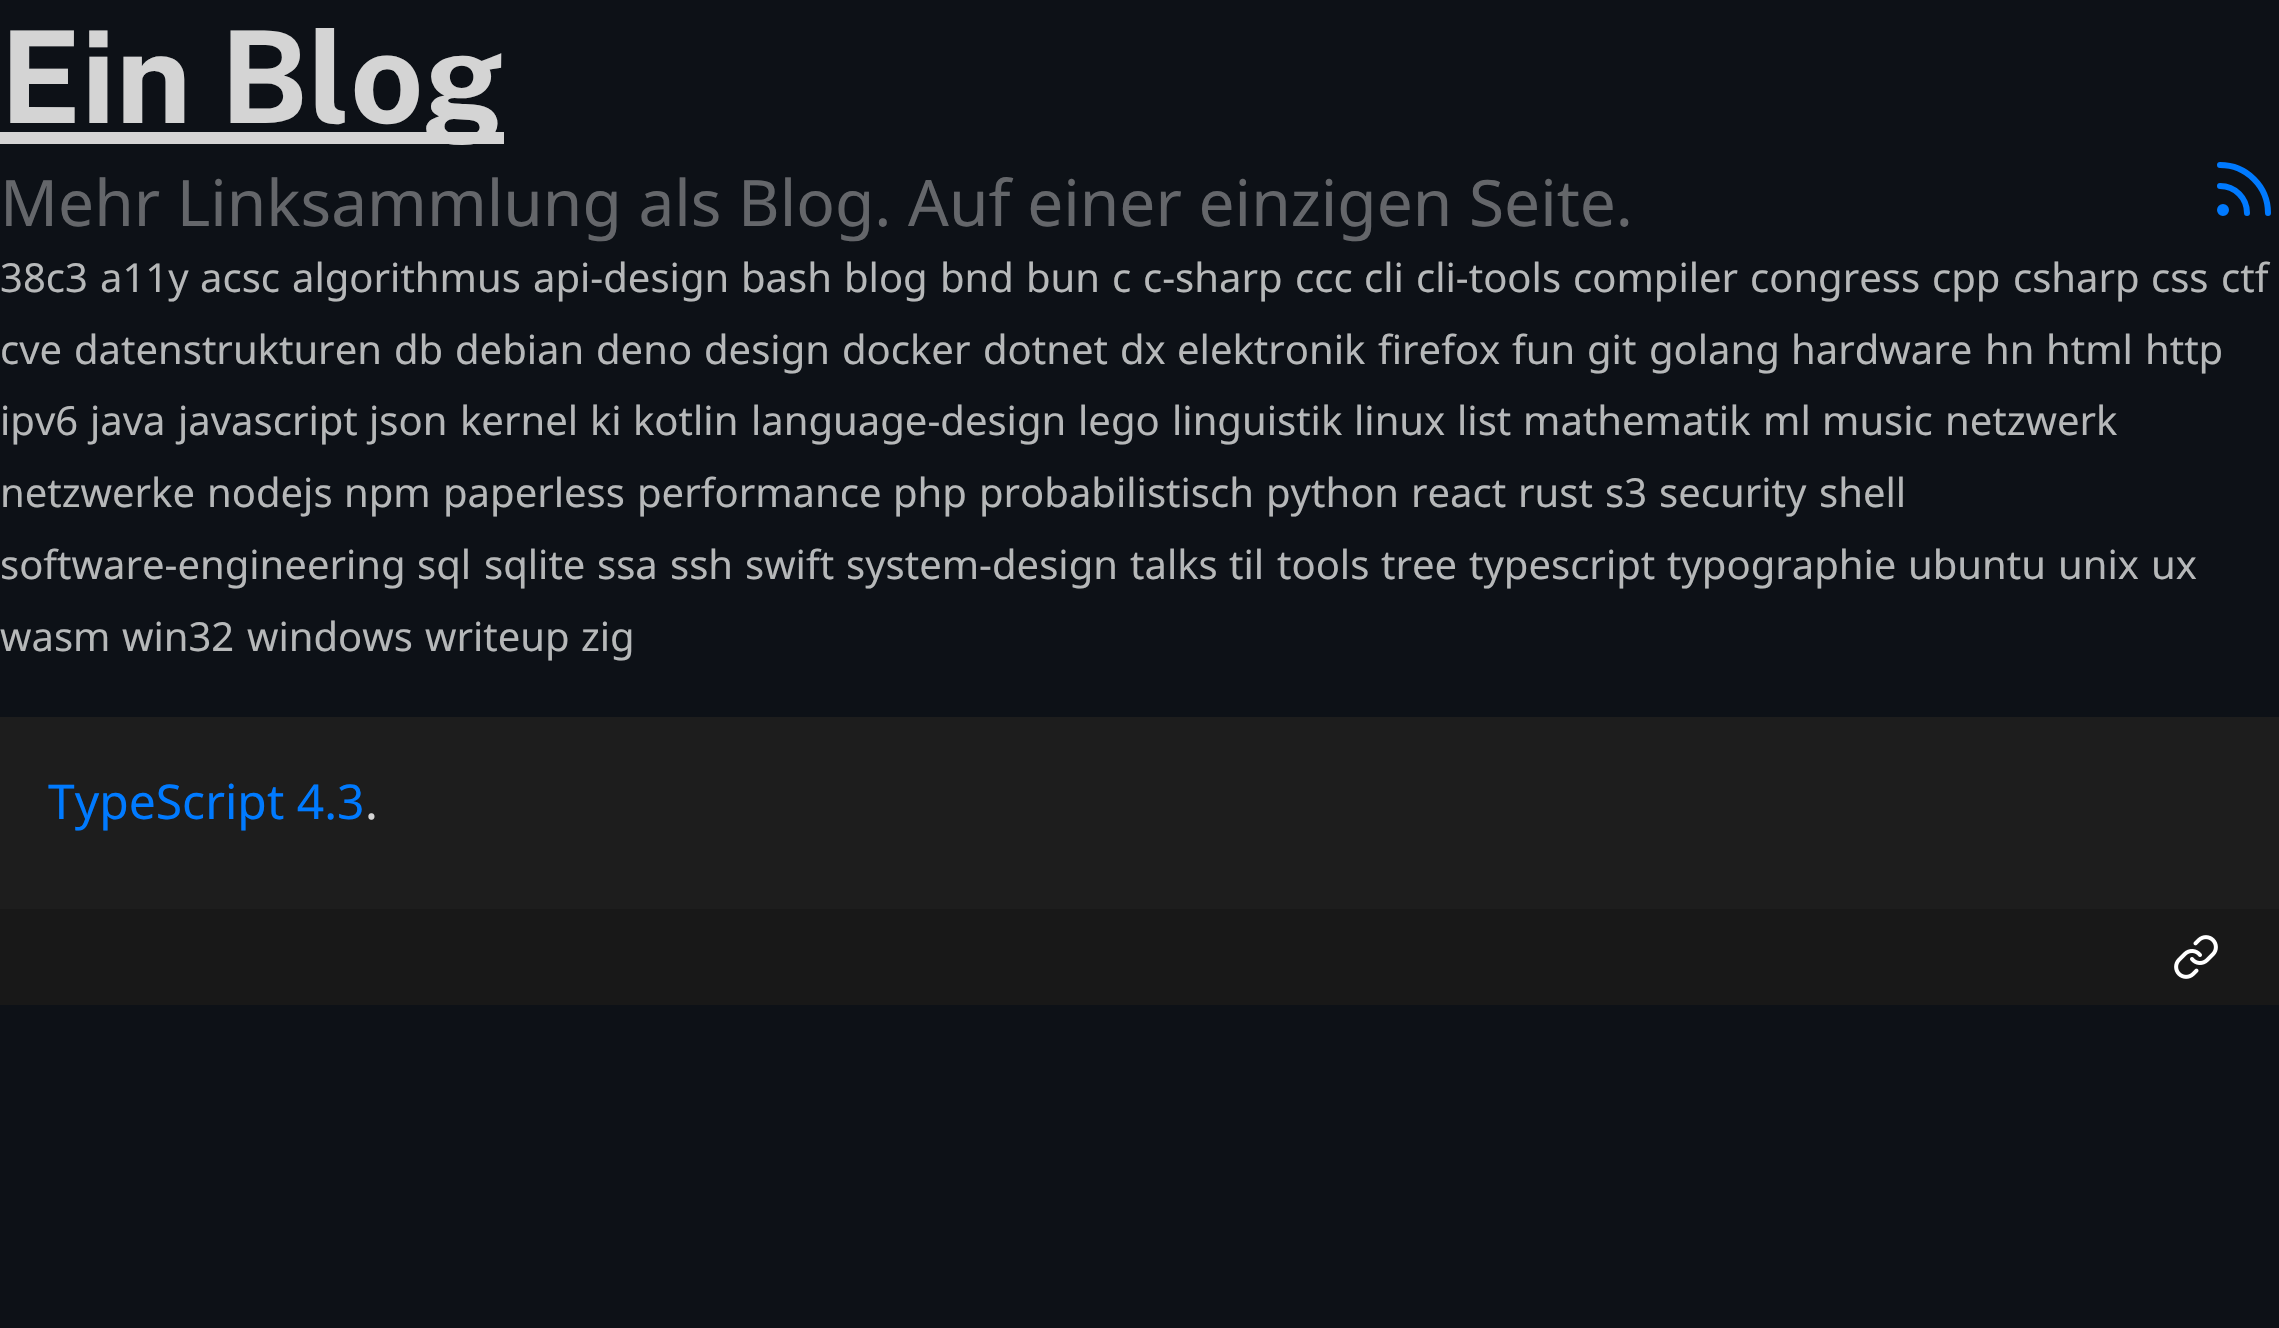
void draw(SkCanvas* canvas) {
	SkPaint fill;
	fill.setAntiAlias(true);
	auto makeFont = [&](const char* family, int weight, float size, bool italic = false) {
		SkFontStyle style(weight, SkFontStyle::kNormal_Width,
			italic ? SkFontStyle::kItalic_Slant : SkFontStyle::kUpright_Slant);
		SkFont result(fontMgr->matchFamilyStyle(family, style), size);
		result.setSubpixel(true);
		return result;
	};
	auto text = [&](const char* s, float x, float y, const SkFont& font) {
		canvas->drawString(s, x, y, font, fill);
	};
	auto box = [&](float l, float t, float r, float b) {
		canvas->drawRect(SkRect::MakeLTRB(l, t, r, b), fill);
	};
	auto picture = [&](const char* path, float l, float t, float r, float b) {
		auto image = SkImages::DeferredFromEncodedData(SkData::MakeFromFileName(path));
		canvas->drawImageRect(image, SkRect::MakeLTRB(l, t, r, b), SkSamplingOptions());
	};
	canvas->clear(0xFF0D1117);
	fill.setColor(0xFFD4D4D4);
	box(0, 132, 504, 144);
	fill.setStyle(SkPaint::kStroke_Style);
	fill.setStrokeWidth(6);
	fill.setStrokeCap(SkPaint::kRound_Cap);
	fill.setStrokeJoin(SkPaint::kRound_Join);
	fill.setColor(0xFF007AFF);
	canvas->drawPath(SkPathBuilder().moveTo(2220, 186).cubicTo(2235, 186, 2247, 198, 2247, 213).moveTo(2220, 165).cubicTo(2246.5f, 165, 2268, 186.5f, 2268, 213).detach(), fill);
	fill.setStrokeCap(SkPaint::kButt_Cap);
	fill.setStrokeJoin(SkPaint::kMiter_Join);
	canvas->drawCircle(2223, 210, 3, fill);
	fill.setStyle(SkPaint::kFill_Style);
	fill.setColor(0xFF1D1D1D);
	box(0, 717, 2279, 909);
	fill.setColor(0xFF181818);
	box(0, 909, 2279, 1005);
	picture("image0.png", 2174, 935, 2218, 979);
	auto font1 = makeFont("Public Sans", 700, 128);
	fill.setColor(0xFFD4D4D4);
	text("Ein Blog", 0, 123, font1);
	auto font2 = makeFont("Noto Sans", 400, 64);
	fill.setColor(0xFF64666A);
	text("Mehr Linksammlung als Blog. Auf einer einzigen Seite.", 0, 226, font2);
	auto font3 = makeFont("Noto Sans", 400, 40);
	fill.setColor(0xFFB6B8B9);
	text("38c3", 0, 292, font3);
	text("a11y", 100, 292, font3);
	text("acsc", 200, 292, font3);
	text("algorithmus", 292, 292, font3);
	text("api-design", 533, 292, font3);
	text("bash", 741, 292, font3);
	text("blog", 844, 292, font3);
	text("bnd", 940, 292, font3);
	text("bun", 1026, 292, font3);
	text("c", 1112, 292, font3);
	text("c-sharp", 1143, 292, font3);
	text("ccc", 1295, 292, font3);
	text("cli", 1364, 292, font3);
	text("cli-tools", 1416, 292, font3);
	text("compiler", 1573, 292, font3);
	text("congress", 1750, 292, font3);
	text("cpp", 1932, 292, font3);
	text("csharp", 2013, 292, font3);
	text("css", 2151, 292, font3);
	text("ctf", 2221, 292, font3);
	text("cve", 0, 364, font3);
	text("datenstrukturen", 74, 364, font3);
	text("db", 394, 364, font3);
	text("debian", 455, 364, font3);
	text("deno", 596, 364, font3);
	text("design", 704, 364, font3);
	text("docker", 842, 364, font3);
	text("dotnet", 983, 364, font3);
	text("dx", 1120, 364, font3);
	text("elektronik", 1177, 364, font3);
	text("firefox", 1378, 364, font3);
	text("fun", 1512, 364, font3);
	text("git", 1587, 364, font3);
	text("golang", 1649, 364, font3);
	text("hardware", 1791, 364, font3);
	text("hn", 1985, 364, font3);
	text("html", 2046, 364, font3);
	text("http", 2145, 364, font3);
	text("ipv6", 0, 435, font3);
	text("java", 90, 435, font3);
	text("javascript", 178, 435, font3);
	text("json", 369, 435, font3);
	text("kernel", 460, 435, font3);
	text("ki", 590, 435, font3);
	text("kotlin", 633, 435, font3);
	text("language-design", 751, 435, font3);
	text("lego", 1078, 435, font3);
	text("linguistik", 1172, 435, font3);
	text("linux", 1354, 435, font3);
	text("list", 1457, 435, font3);
	text("mathematik", 1523, 435, font3);
	text("ml", 1763, 435, font3);
	text("music", 1822, 435, font3);
	text("netzwerk", 1945, 435, font3);
	text("netzwerke", 0, 507, font3);
	text("nodejs", 207, 507, font3);
	text("npm", 344, 507, font3);
	text("paperless", 443, 507, font3);
	text("performance", 637, 507, font3);
	text("php", 893, 507, font3);
	text("probabilistisch", 979, 507, font3);
	text("python", 1266, 507, font3);
	text("react", 1411, 507, font3);
	text("rust", 1518, 507, font3);
	text("s3", 1605, 507, font3);
	text("security", 1659, 507, font3);
	text("shell", 1819, 507, font3);
	text("software-engineering", 0, 579, font3);
	text("sql", 417, 579, font3);
	text("sqlite", 484, 579, font3);
	text("ssa", 597, 579, font3);
	text("ssh", 670, 579, font3);
	text("swift", 745, 579, font3);
	text("system-design", 846, 579, font3);
	text("talks", 1130, 579, font3);
	text("til", 1229, 579, font3);
	text("tools", 1277, 579, font3);
	text("tree", 1381, 579, font3);
	text("typescript", 1469, 579, font3);
	text("typographie", 1667, 579, font3);
	text("ubuntu", 1908, 579, font3);
	text("unix", 2058, 579, font3);
	text("ux", 2151, 579, font3);
	text("wasm", 0, 651, font3);
	text("win32", 122, 651, font3);
	text("windows", 247, 651, font3);
	text("writeup", 425, 651, font3);
	text("zig", 581, 651, font3);
	auto font4 = makeFont("Noto Sans", 400, 48);
	fill.setColor(0xFF007AFF);
	text("TypeScript 4.3", 48, 819, font4);
	fill.setColor(0xFFD4D4D4);
	text(".", 365, 819, font4);
}
